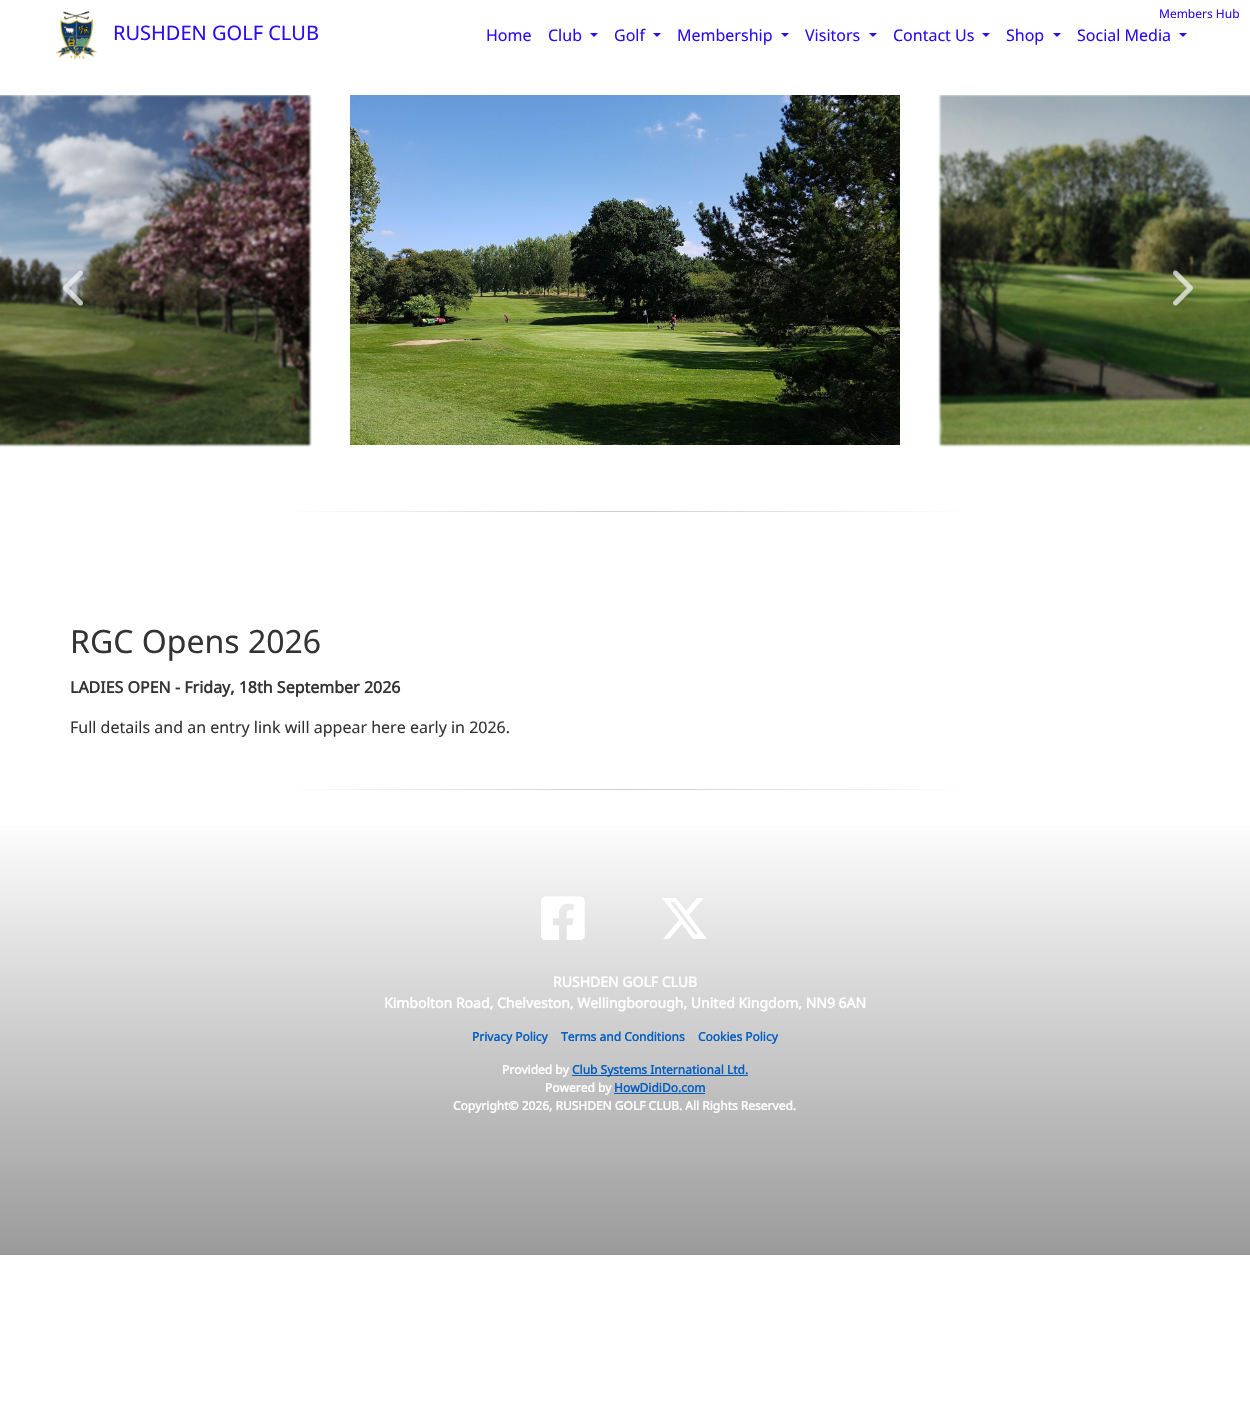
void draw(SkCanvas* canvas) {
	SkPaint fill;
	fill.setAntiAlias(true);
	auto makeFont = [&](const char* family, int weight, float size, bool italic = false) {
		SkFontStyle style(weight, SkFontStyle::kNormal_Width,
			italic ? SkFontStyle::kItalic_Slant : SkFontStyle::kUpright_Slant);
		SkFont result(fontMgr->matchFamilyStyle(family, style), size);
		result.setSubpixel(true);
		return result;
	};
	auto text = [&](const char* s, float x, float y, const SkFont& font) {
		canvas->drawString(s, x, y, font, fill);
	};
	auto box = [&](float l, float t, float r, float b) {
		canvas->drawRect(SkRect::MakeLTRB(l, t, r, b), fill);
	};
	auto picture = [&](const char* path, float l, float t, float r, float b) {
		auto image = SkImages::DeferredFromEncodedData(SkData::MakeFromFileName(path));
		canvas->drawImageRect(image, SkRect::MakeLTRB(l, t, r, b), SkSamplingOptions());
	};
	canvas->clear(0xFFFFFFFF);
	picture("image0.png", 56, 11, 97, 60);
	fill.setColor(0xFF2C0BF4);
	canvas->drawPath(SkPathBuilder().moveTo(590, 33).lineTo(598, 33).lineTo(594, 37).close().detach(), fill);
	canvas->drawPath(SkPathBuilder().moveTo(653, 33).lineTo(661, 33).lineTo(657, 37).close().detach(), fill);
	canvas->drawPath(SkPathBuilder().moveTo(781, 33).lineTo(789, 33).lineTo(785, 37).close().detach(), fill);
	canvas->drawPath(SkPathBuilder().moveTo(869, 33).lineTo(877, 33).lineTo(873, 37).close().detach(), fill);
	canvas->drawPath(SkPathBuilder().moveTo(982, 33).lineTo(990, 33).lineTo(986, 37).close().detach(), fill);
	canvas->drawPath(SkPathBuilder().moveTo(1053, 33).lineTo(1061, 33).lineTo(1057, 37).close().detach(), fill);
	canvas->drawPath(SkPathBuilder().moveTo(1179, 33).lineTo(1187, 33).lineTo(1183, 37).close().detach(), fill);
	picture("image1.png", 0, 95, 312, 447);
	picture("image2.png", 350, 95, 900, 445);
	picture("image3.png", 938, 95, 1250, 447);
	picture("image4.png", 63, 270, 83, 306);
	picture("image5.png", 1173, 270, 1193, 306);
	{
		const SkColor colors[] = {0xFFCCCCCC, 0xFFFFFFFF};
		const float stops[] = {0, 1};
		fill.setShader(SkGradientShader::MakeRadial({625, 512}, 350, colors, stops, 2, SkTileMode::kClamp));
		fill.setAlpha(255);
	}
	box(292, 511, 958, 512);
	{
		const SkColor colors[] = {0xFFCCCCCC, 0xFFFFFFFF};
		const float stops[] = {0, 1};
		fill.setShader(SkGradientShader::MakeRadial({625, 790}, 350, colors, stops, 2, SkTileMode::kClamp));
		fill.setAlpha(255);
	}
	box(292, 789, 958, 790);
	{
		const SkColor colors[] = {0xFFFFFFFF, 0xFF9A9A9A};
		const float stops[] = {0, 1};
		const SkPoint ends[] = {{625, 815}, {625, 1255}};
		fill.setShader(SkGradientShader::MakeLinear(ends, colors, stops, 2, SkTileMode::kClamp));
		fill.setAlpha(255);
	}
	box(0, 826, 1250, 1255);
	picture("image6.png", 541, 896, 585, 940);
	fill.setShader(nullptr);
	fill.setColor(0xFFFFFFFF);
	canvas->drawPath(SkPathBuilder().moveTo(697, 898).lineTo(704, 898).lineTo(689, 915).lineTo(707, 939).lineTo(693, 939).lineTo(682, 924).lineTo(669, 939).lineTo(663, 939).lineTo(679, 920).lineTo(662, 898).lineTo(676, 898).lineTo(686, 911).close().moveTo(695, 934).lineTo(698, 934).lineTo(674, 902).lineTo(670, 902).close().detach(), fill);
	fill.setColor(0xFF005DC1);
	box(572, 1075, 748, 1076);
	box(614, 1093, 705, 1094);
	auto font1 = makeFont("Noto Sans", 400, 20);
	fill.setColor(0xFF2C0BF4);
	text("RUSHDEN GOLF CLUB", 113, 40, font1);
	auto font2 = makeFont("Noto Sans", 400, 12);
	text("Members Hub", 1159, 18, font2);
	auto font3 = makeFont("Noto Sans", 400, 16);
	text("Home", 486, 41, font3);
	text("Club", 548, 41, font3);
	text("Golf", 614, 41, font3);
	text("Membership", 677, 41, font3);
	text("Visitors", 805, 41, font3);
	text("Contact Us", 893, 41, font3);
	text("Shop", 1006, 41, font3);
	text("Social Media", 1077, 41, font3);
	auto font4 = makeFont("Noto Sans", 400, 32);
	fill.setColor(0xFF333333);
	text("RGC Opens 2026", 70, 653, font4);
	auto font5 = makeFont("Noto Sans", 700, 16);
	text("LADIES OPEN - Friday, 18th September 2026", 70, 693, font5);
	text("Full details and an entry link will appear here early in 2026.", 70, 733, font3);
	auto font6 = makeFont("Noto Sans", 700, 14);
	fill.setColor(0xFFFFFFFF);
	text("RUSHDEN GOLF CLUB", 553, 987, font6);
	text("Kimbolton Road, Chelveston, Wellingborough, United Kingdom, NN9 6AN", 384, 1008, font6);
	auto font7 = makeFont("Noto Sans", 700, 12);
	fill.setColor(0xFF005DC1);
	text("Privacy Policy", 472, 1041, font7);
	text("Terms and Conditions", 561, 1041, font7);
	text("Cookies Policy", 698, 1041, font7);
	fill.setColor(0xFFFFFFFF);
	text("Provided by", 502, 1074, font7);
	fill.setColor(0xFF005DC1);
	text("Club Systems International Ltd.", 572, 1074, font7);
	fill.setColor(0xFFFFFFFF);
	text("Powered by", 545, 1092, font7);
	fill.setColor(0xFF005DC1);
	text("HowDidiDo.com", 614, 1092, font7);
	fill.setColor(0xFFFFFFFF);
	text("Copyright© 2026, RUSHDEN GOLF CLUB. All Rights Reserved.", 453, 1110, font7);
}
